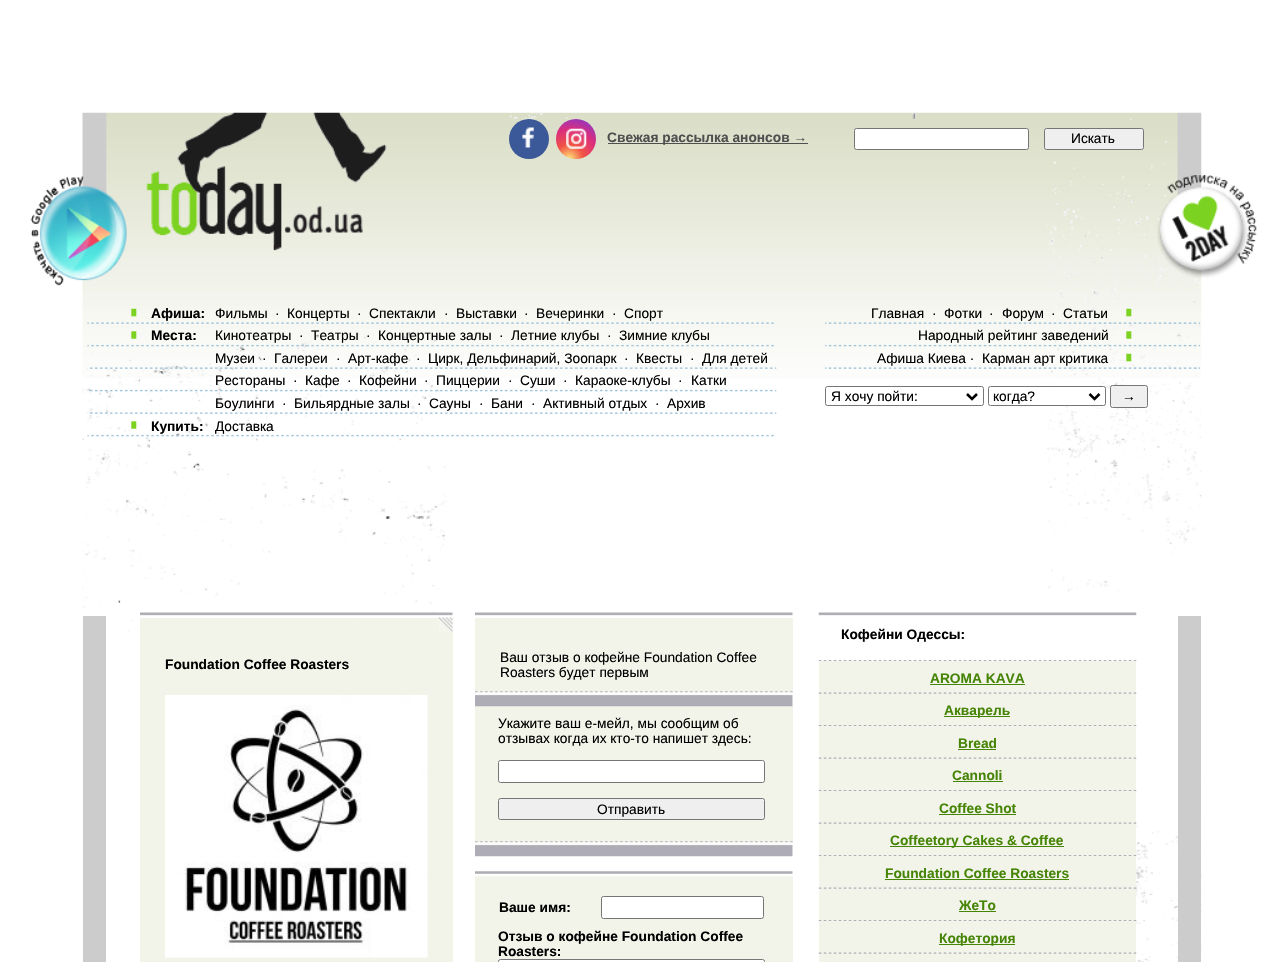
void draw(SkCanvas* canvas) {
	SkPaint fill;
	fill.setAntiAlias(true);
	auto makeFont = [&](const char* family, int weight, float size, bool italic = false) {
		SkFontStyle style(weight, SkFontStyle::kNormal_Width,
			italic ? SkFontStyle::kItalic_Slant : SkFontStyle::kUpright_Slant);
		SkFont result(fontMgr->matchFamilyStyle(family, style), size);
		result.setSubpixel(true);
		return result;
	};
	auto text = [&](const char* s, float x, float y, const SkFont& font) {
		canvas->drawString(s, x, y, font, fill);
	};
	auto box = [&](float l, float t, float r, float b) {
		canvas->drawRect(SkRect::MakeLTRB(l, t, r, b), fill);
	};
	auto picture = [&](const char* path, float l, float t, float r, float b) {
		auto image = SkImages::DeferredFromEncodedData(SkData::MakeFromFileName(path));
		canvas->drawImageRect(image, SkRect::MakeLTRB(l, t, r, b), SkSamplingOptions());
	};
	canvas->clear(0xFFFFFFFF);
	picture("image13.png", 82, 112, 1202, 378);
	picture("image14.png", 82, 112, 1202, 962);
	picture("image0.png", 30, 176, 127, 286);
	fill.setColor(0xFF3B5998);
	canvas->drawCircle(529, 139, 20, fill);
	picture("image1.png", 522, 127, 534, 148);
	{
		const SkColor colors[] = {0xFFFED373, 0xFFF15245, 0xFFD92E7F, 0xFF9B36B7, 0xFF515ECF};
		const float stops[] = {0.04f, 0.3f, 0.62f, 0.85f, 1};
		fill.setShader(SkGradientShader::MakeRadial({569, 159}, 48, colors, stops, 5, SkTileMode::kClamp));
		fill.setAlpha(255);
	}
	canvas->drawCircle(576, 139, 20, fill);
	picture("image2.png", 566, 128, 587, 149);
	fill.setShader(nullptr);
	fill.setColor(0xFF4F4F4F);
	box(608, 143, 808, 144);
	fill.setColor(0xFFFFFFFF);
	canvas->drawRoundRect(SkRect::MakeLTRB(854.5f, 128.5f, 1028.5f, 149.5f), 2, 2, fill);
	fill.setStyle(SkPaint::kStroke_Style);
	fill.setStrokeWidth(1);
	fill.setColor(0xFF767676);
	canvas->drawRoundRect(SkRect::MakeLTRB(854.5f, 128.5f, 1028.5f, 149.5f), 2, 2, fill);
	fill.setStyle(SkPaint::kFill_Style);
	fill.setColor(0xFFEFEFEF);
	canvas->drawRoundRect(SkRect::MakeLTRB(1044.5f, 128.5f, 1143.5f, 149.5f), 2, 2, fill);
	fill.setStyle(SkPaint::kStroke_Style);
	fill.setColor(0xFF767676);
	canvas->drawRoundRect(SkRect::MakeLTRB(1044.5f, 128.5f, 1143.5f, 149.5f), 2, 2, fill);
	picture("image3.png", 87, 308, 774, 324);
	picture("image4.png", 87, 331, 774, 347);
	picture("image5.png", 87, 367, 777, 369);
	picture("image6.png", 87, 389, 777, 392);
	picture("image7.png", 87, 412, 777, 414);
	picture("image8.png", 87, 421, 774, 437);
	picture("image9.png", 825, 308, 1200, 324);
	picture("image10.png", 825, 331, 1200, 347);
	picture("image11.png", 825, 353, 1200, 369);
	canvas->drawRoundRect(SkRect::MakeLTRB(825.5f, 386.5f, 983.5f, 405.5f), 2, 2, fill);
	fill.setStrokeWidth(2.5f);
	fill.setColor(0xFF000000);
	canvas->drawPath(SkPathBuilder().moveTo(967, 394).lineTo(972, 399).lineTo(977, 394).detach(), fill);
	fill.setStyle(SkPaint::kFill_Style);
	fill.setColor(0xFFFFFFFF);
	canvas->drawRoundRect(SkRect::MakeLTRB(988.5f, 386.5f, 1105.5f, 405.5f), 2, 2, fill);
	fill.setStyle(SkPaint::kStroke_Style);
	fill.setStrokeWidth(1);
	fill.setColor(0xFF767676);
	canvas->drawRoundRect(SkRect::MakeLTRB(988.5f, 386.5f, 1105.5f, 405.5f), 2, 2, fill);
	fill.setStrokeWidth(2.5f);
	fill.setColor(0xFF000000);
	canvas->drawPath(SkPathBuilder().moveTo(1089.5f, 394).lineTo(1094.5f, 399).lineTo(1099.5f, 394).detach(), fill);
	fill.setStyle(SkPaint::kFill_Style);
	fill.setColor(0xFFEFEFEF);
	canvas->drawRoundRect(SkRect::MakeLTRB(1110.5f, 385.5f, 1147.5f, 407.5f), 2, 2, fill);
	fill.setStyle(SkPaint::kStroke_Style);
	fill.setStrokeWidth(1);
	fill.setColor(0xFF767676);
	canvas->drawRoundRect(SkRect::MakeLTRB(1110.5f, 385.5f, 1147.5f, 407.5f), 2, 2, fill);
	picture("image12.png", 1157, 175, 1257, 278);
	fill.setStyle(SkPaint::kFill_Style);
	fill.setColor(0xFFCCCCCC);
	box(83, 616, 106, 962);
	picture("image15.png", 140, 612, 453, 616);
	fill.setColor(0xFFF2F4EA);
	box(140, 618, 453, 962);
	picture("image16.png", 438, 617, 453, 632);
	picture("image17.png", 165, 695, 428, 958);
	picture("image18.png", 475, 612, 793, 616);
	box(475, 618, 793, 693);
	picture("image19.png", 475, 691, 793, 693);
	box(475, 706, 793, 843);
	picture("image20.png", 475, 692, 793, 707);
	picture("image19.png", 475, 841, 793, 843);
	fill.setColor(0xFFFFFFFF);
	canvas->drawRoundRect(SkRect::MakeLTRB(498.5f, 760.5f, 764.5f, 782.5f), 2, 2, fill);
	fill.setStyle(SkPaint::kStroke_Style);
	fill.setColor(0xFF767676);
	canvas->drawRoundRect(SkRect::MakeLTRB(498.5f, 760.5f, 764.5f, 782.5f), 2, 2, fill);
	fill.setStyle(SkPaint::kFill_Style);
	fill.setColor(0xFFEFEFEF);
	canvas->drawRoundRect(SkRect::MakeLTRB(498.5f, 798.5f, 764.5f, 819.5f), 2, 2, fill);
	fill.setStyle(SkPaint::kStroke_Style);
	fill.setColor(0xFF767676);
	canvas->drawRoundRect(SkRect::MakeLTRB(498.5f, 798.5f, 764.5f, 819.5f), 2, 2, fill);
	picture("image21.png", 475, 842, 793, 857);
	fill.setStyle(SkPaint::kFill_Style);
	fill.setColor(0xFFF2F4EA);
	box(475, 876, 793, 962);
	picture("image22.png", 475, 871, 793, 877);
	fill.setColor(0xFFFFFFFF);
	canvas->drawRoundRect(SkRect::MakeLTRB(601.5f, 896.5f, 763.5f, 918.5f), 2, 2, fill);
	fill.setStyle(SkPaint::kStroke_Style);
	fill.setColor(0xFF767676);
	canvas->drawRoundRect(SkRect::MakeLTRB(601.5f, 896.5f, 763.5f, 918.5f), 2, 2, fill);
	fill.setStyle(SkPaint::kFill_Style);
	fill.setColor(0xFFFFFFFF);
	canvas->drawRoundRect(SkRect::MakeLTRB(498.5f, 959.5f, 764.5f, 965.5f), 2, 2, fill);
	fill.setStyle(SkPaint::kStroke_Style);
	fill.setColor(0xFF767676);
	canvas->drawRoundRect(SkRect::MakeLTRB(498.5f, 959.5f, 764.5f, 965.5f), 2, 2, fill);
	picture("image23.png", 818, 612, 1137, 616);
	picture("image24.png", 818, 660, 1137, 662);
	fill.setStyle(SkPaint::kFill_Style);
	fill.setColor(0xFFF2F4EA);
	box(819, 661, 1136, 726);
	picture("image25.png", 818, 692, 1137, 694);
	fill.setColor(0xFF468405);
	box(930, 684, 1025, 685);
	picture("image26.png", 818, 725, 1137, 727);
	box(944, 716, 1010, 717);
	fill.setColor(0xFFF2F4EA);
	box(819, 726, 1136, 791);
	picture("image25.png", 818, 757, 1137, 759);
	fill.setColor(0xFF468405);
	box(958, 749, 996, 750);
	picture("image26.png", 818, 790, 1137, 792);
	box(953, 781, 1003, 782);
	fill.setColor(0xFFF2F4EA);
	box(819, 791, 1136, 856);
	picture("image25.png", 818, 822, 1137, 824);
	fill.setColor(0xFF468405);
	box(939, 814, 1016, 815);
	picture("image27.png", 818, 855, 1137, 857);
	box(890, 846, 1064, 847);
	fill.setColor(0xFFF2F4EA);
	box(819, 856, 1136, 921);
	picture("image28.png", 818, 887, 1137, 889);
	fill.setColor(0xFF468405);
	box(885, 879, 1069, 880);
	picture("image29.png", 818, 920, 1137, 922);
	box(959, 911, 996, 912);
	fill.setColor(0xFFF2F4EA);
	box(819, 921, 1136, 962);
	picture("image25.png", 818, 952, 1137, 954);
	fill.setColor(0xFF468405);
	box(939, 944, 1015, 945);
	fill.setColor(0xFFCCCCCC);
	box(1178, 616, 1201, 962);
	auto font1 = makeFont("Liberation Sans", 700, 13.75f);
	fill.setColor(0xFF4F4F4F);
	text("Свежая рассылка анонсов →", 607, 142, font1);
	auto font2 = makeFont("Liberation Sans", 400, 13.75f);
	fill.setColor(0xFF000000);
	text("Искать", 1071, 143, font2);
	text("Афиша:", 151, 318, font1);
	text("Фильмы", 215, 318, font2);
	text("·", 275, 318, font2);
	text("Концерты", 287, 318, font2);
	text("·", 357, 318, font2);
	text("Спектакли", 369, 318, font2);
	text("·", 444, 318, font2);
	text("Выставки", 456, 318, font2);
	text("·", 524, 318, font2);
	text("Вечеринки", 536, 318, font2);
	text("·", 612, 318, font2);
	text("Спорт", 624, 318, font2);
	text("Места:", 151, 340, font1);
	text("Кинотеатры", 215, 340, font2);
	text("·", 299, 340, font2);
	text("Театры", 311, 340, font2);
	text("·", 366, 340, font2);
	text("Концертные залы", 378, 340, font2);
	text("·", 499, 340, font2);
	text("Летние клубы", 511, 340, font2);
	text("·", 607, 340, font2);
	text("Зимние клубы", 619, 340, font2);
	text("Музеи", 215, 363, font2);
	text("·", 262, 363, font2);
	text("Галереи", 274, 363, font2);
	text("·", 336, 363, font2);
	text("Арт-кафе", 348, 363, font2);
	text("·", 416, 363, font2);
	text("Цирк, Дельфинарий, Зоопарк", 428, 363, font2);
	text("·", 624, 363, font2);
	text("Квесты", 636, 363, font2);
	text("·", 690, 363, font2);
	text("Для детей", 702, 363, font2);
	text("Рестораны", 215, 385, font2);
	text("·", 293, 385, font2);
	text("Кафе", 305, 385, font2);
	text("·", 347, 385, font2);
	text("Кофейни", 359, 385, font2);
	text("·", 424, 385, font2);
	text("Пиццерии", 436, 385, font2);
	text("·", 508, 385, font2);
	text("Суши", 520, 385, font2);
	text("·", 563, 385, font2);
	text("Караоке-клубы", 575, 385, font2);
	text("·", 678, 385, font2);
	text("Катки", 691, 385, font2);
	text("Боулинги", 215, 408, font2);
	text("·", 282, 408, font2);
	text("Бильярдные залы", 294, 408, font2);
	text("·", 417, 408, font2);
	text("Сауны", 429, 408, font2);
	text("·", 479, 408, font2);
	text("Бани", 491, 408, font2);
	text("·", 531, 408, font2);
	text("Активный отдых", 543, 408, font2);
	text("·", 655, 408, font2);
	text("Архив", 667, 408, font2);
	text("Купить:", 151, 431, font1);
	text("Доставка", 215, 431, font2);
	text("Главная", 871, 318, font2);
	text("·", 932, 318, font2);
	text("Фотки", 944, 318, font2);
	text("·", 989, 318, font2);
	text("Форум", 1002, 318, font2);
	text("·", 1051, 318, font2);
	text("Статьи", 1063, 318, font2);
	text("Народный рейтинг заведений", 918, 340, font2);
	text("Афиша Киева ·", 877, 363, font2);
	text("Карман арт критика", 982, 363, font2);
	text("Я хочу пойти:", 831, 401, font2);
	text("когда?", 993, 401, font2);
	text("→", 1122, 401, font2);
	text("Foundation Coffee Roasters", 165, 669, font1);
	text("Ваш отзыв о кофейне Foundation Coffee", 500, 662, font2);
	text("Roasters будет первым", 500, 677, font2);
	text("Укажите ваш е-мейл, мы сообщим об", 498, 728, font2);
	text("отзывах когда их кто-то напишет здесь:", 498, 743, font2);
	text("Отправить", 597, 814, font2);
	text("Ваше имя:", 499, 912, font1);
	text("Отзыв о кофейне Foundation Coffee", 498, 941, font1);
	text("Roasters:", 498, 956, font1);
	text("Кофейни Одессы:", 841, 639, font1);
	fill.setColor(0xFF468405);
	text("AROMA KAVA", 930, 683, font1);
	text("Акварель", 944, 715, font1);
	text("Bread", 958, 748, font1);
	text("Cannoli", 952, 780, font1);
	text("Coffee Shot", 939, 813, font1);
	text("Coffeetory Cakes & Coffee", 890, 845, font1);
	text("Foundation Coffee Roasters", 885, 878, font1);
	text("ЖеТо", 959, 910, font1);
	text("Кофетория", 939, 943, font1);
}
